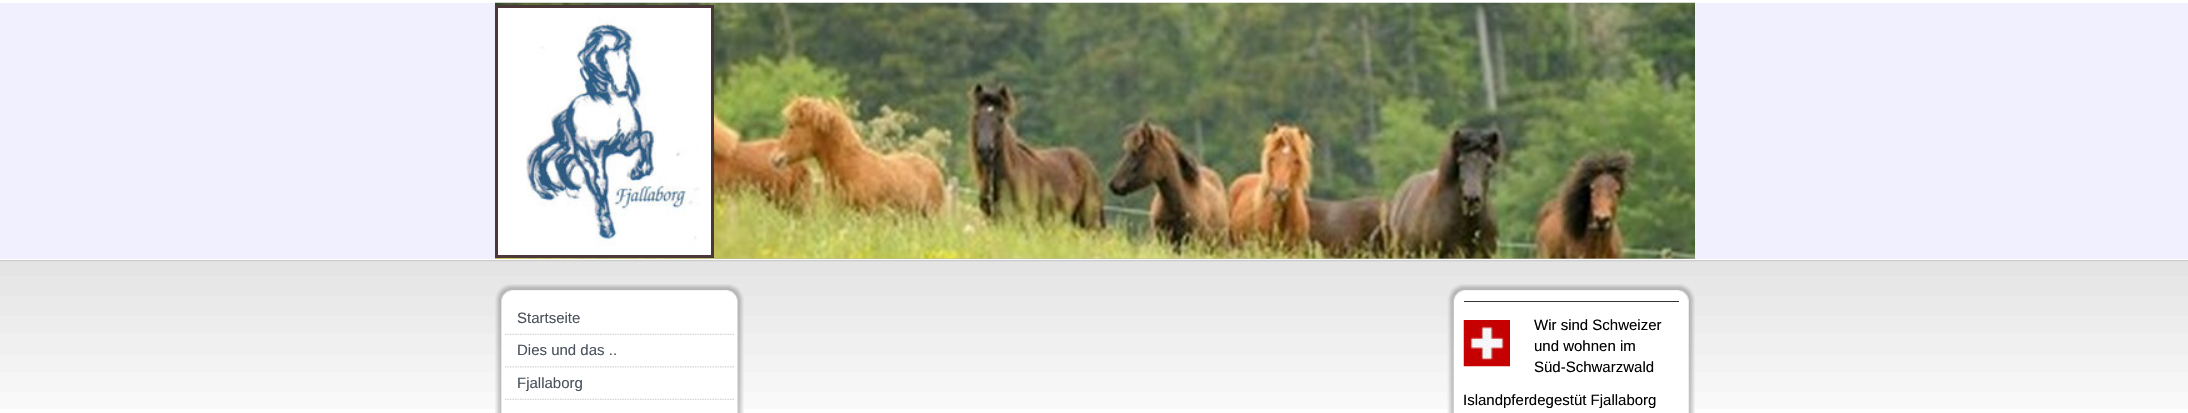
void draw(SkCanvas* canvas) {
	SkPaint fill;
	fill.setAntiAlias(true);
	auto makeFont = [&](const char* family, int weight, float size, bool italic = false) {
		SkFontStyle style(weight, SkFontStyle::kNormal_Width,
			italic ? SkFontStyle::kItalic_Slant : SkFontStyle::kUpright_Slant);
		SkFont result(fontMgr->matchFamilyStyle(family, style), size);
		result.setSubpixel(true);
		return result;
	};
	auto text = [&](const char* s, float x, float y, const SkFont& font) {
		canvas->drawString(s, x, y, font, fill);
	};
	auto box = [&](float l, float t, float r, float b) {
		canvas->drawRect(SkRect::MakeLTRB(l, t, r, b), fill);
	};
	auto picture = [&](const char* path, float l, float t, float r, float b) {
		auto image = SkImages::DeferredFromEncodedData(SkData::MakeFromFileName(path));
		canvas->drawImageRect(image, SkRect::MakeLTRB(l, t, r, b), SkSamplingOptions());
	};
	canvas->clear(0xFFF0F0FF);
	fill.setColor(0xFFFFFFFF);
	box(0, 0, 2188, 3);
	fill.setColor(0xFFB8B8B8);
	box(495, 258, 1695, 259);
	picture("image0.png", 495, 2, 1695, 259);
	fill.setColor(0xFFFFFFFF);
	canvas->drawRect(SkRect::MakeLTRB(496.5f, 6.5f, 712.5f, 256.5f), fill);
	fill.setStyle(SkPaint::kStroke_Style);
	fill.setStrokeWidth(3);
	fill.setColor(0xFF4B3737);
	canvas->drawRect(SkRect::MakeLTRB(496.5f, 6.5f, 712.5f, 256.5f), fill);
	picture("image1.png", 526, 16, 700, 246);
	fill.setStyle(SkPaint::kFill_Style);
	fill.setColor(0xFFFFFFFF);
	box(0, 259, 2188, 413);
	picture("image2.png", 0, 260, 2188, 409);
	picture("image3.png", 495, 284, 744, 413);
	picture("image4.png", 505, 333, 735, 335);
	picture("image5.png", 505, 366, 734, 368);
	picture("image4.png", 505, 398, 735, 400);
	picture("image6.png", 1447, 284, 1695, 413);
	fill.setColor(0xFF333333);
	box(1464, 301, 1679, 302);
	picture("image7.png", 1463, 320, 1510, 367);
	auto font1 = makeFont("Liberation Sans", 400, 15);
	fill.setColor(0xFF4B525C);
	text("Startseite", 517, 323, font1);
	text("Dies und das ..", 517, 355, font1);
	text("Fjallaborg", 517, 388, font1);
	fill.setColor(0xFF000000);
	text("Wir sind Schweizer", 1534, 330, font1);
	text("und wohnen im", 1534, 351, font1);
	text("Süd-Schwarzwald", 1534, 372, font1);
	text("Islandpferdegestüt Fjallaborg", 1463, 405, font1);
}
